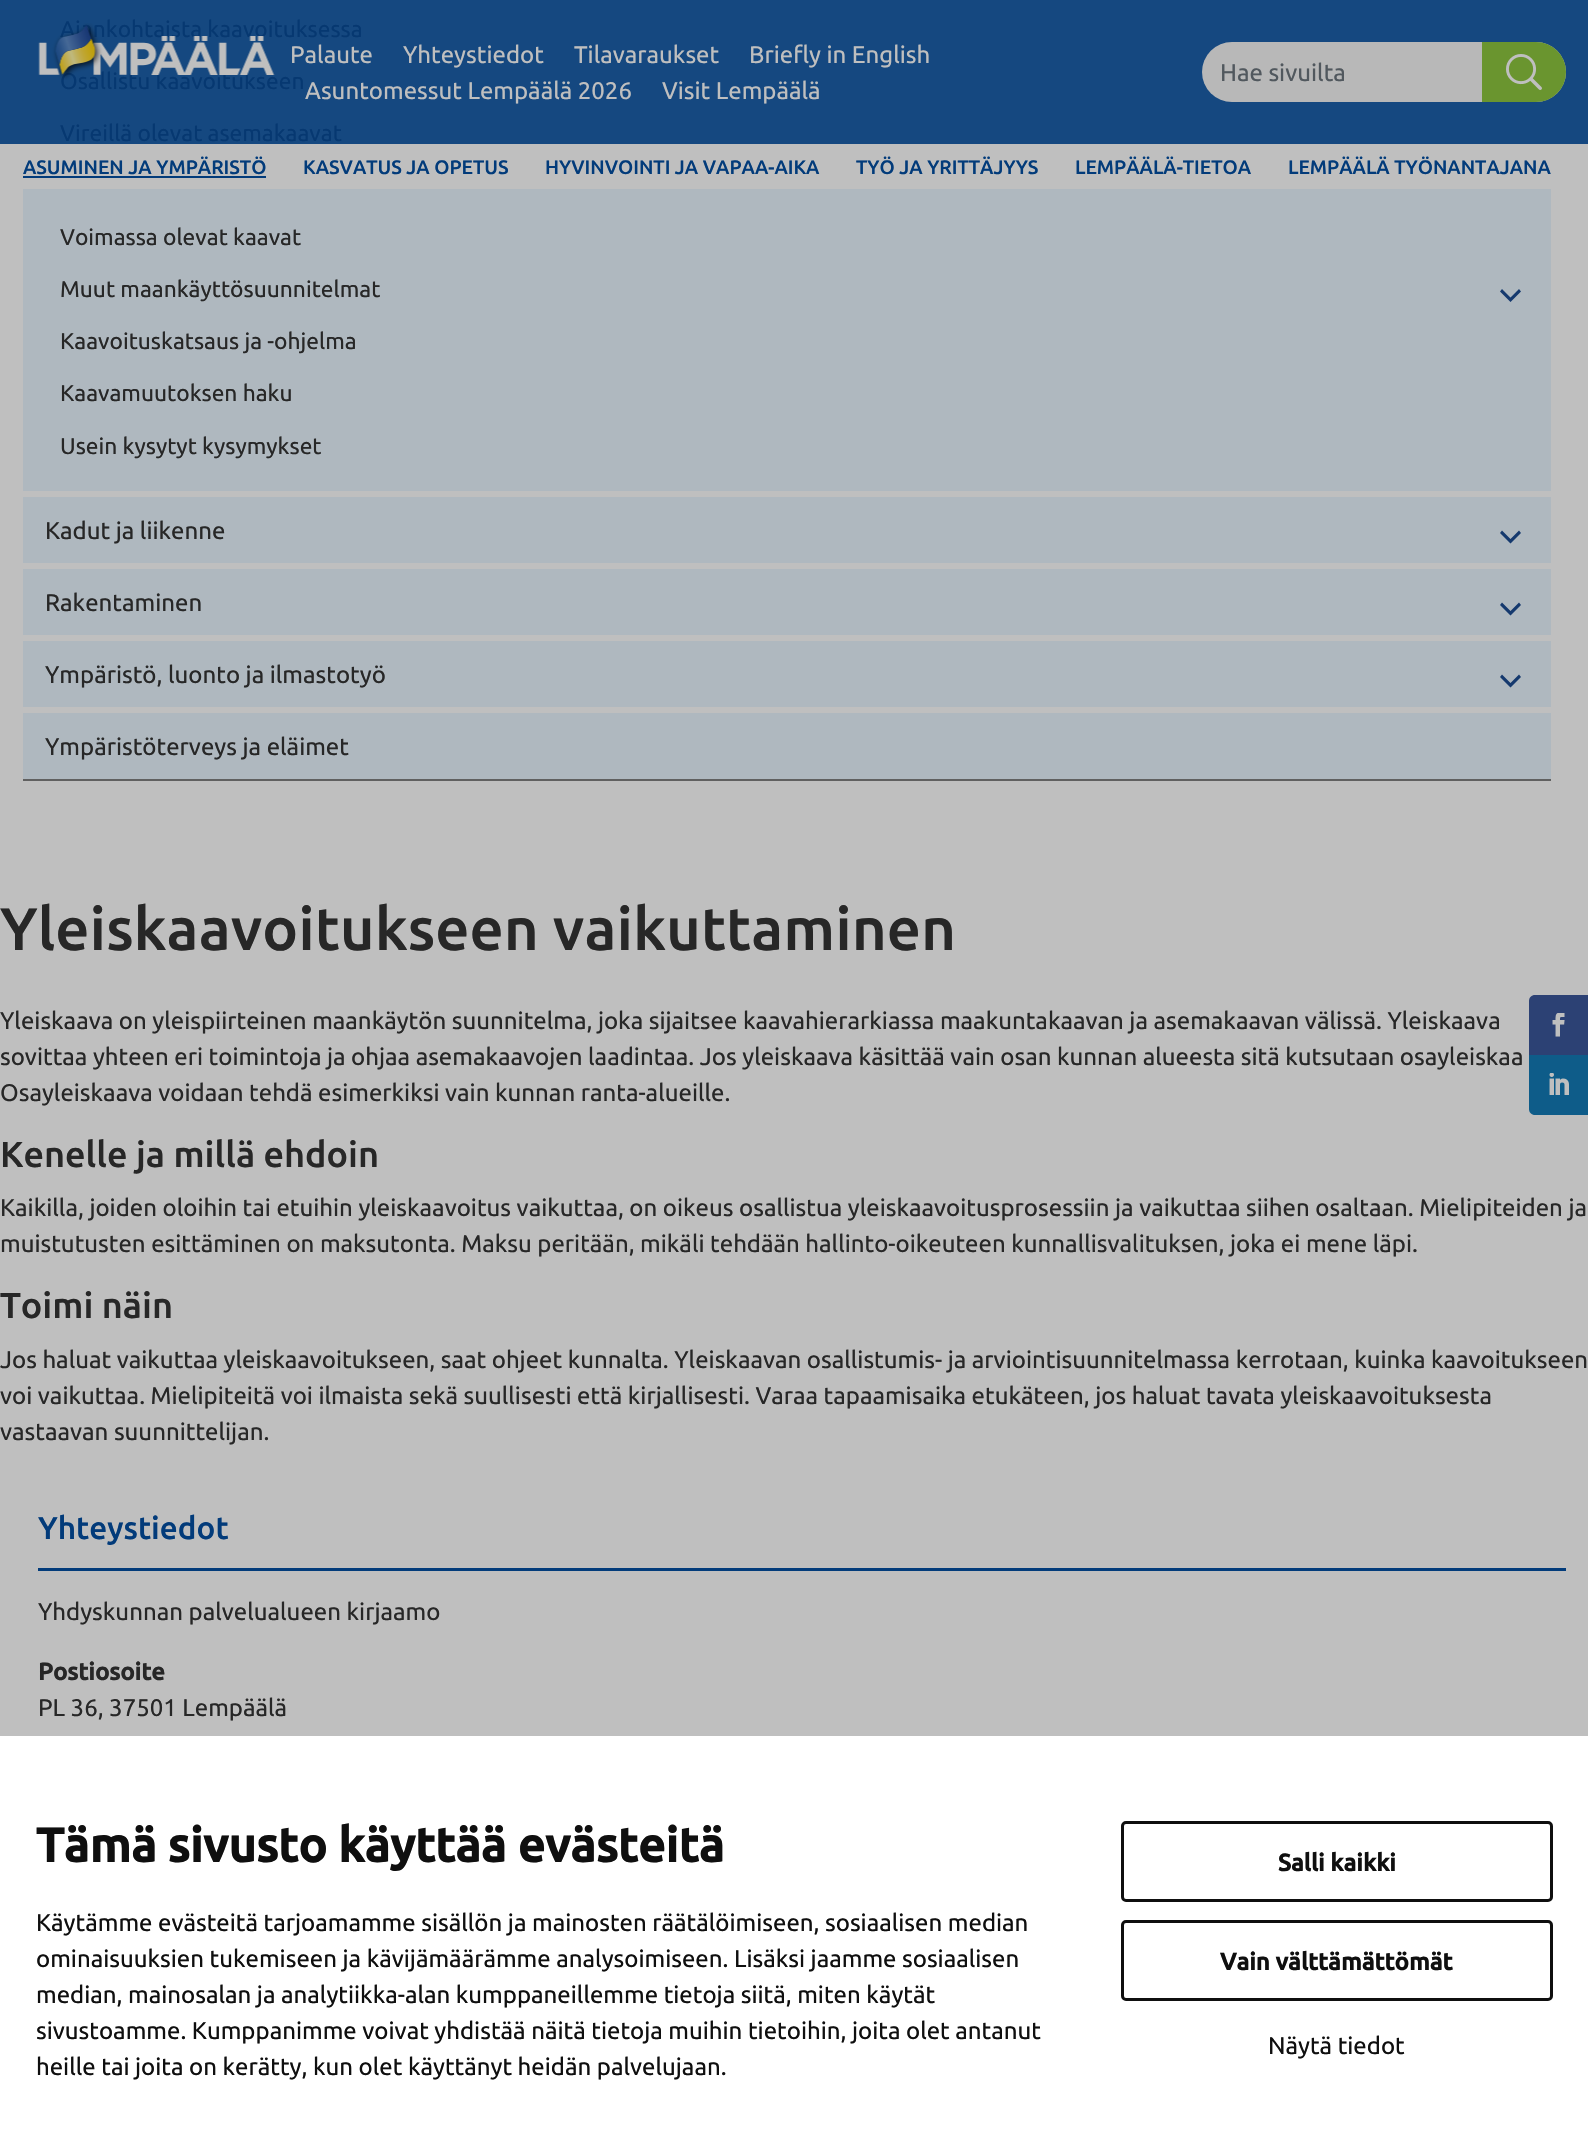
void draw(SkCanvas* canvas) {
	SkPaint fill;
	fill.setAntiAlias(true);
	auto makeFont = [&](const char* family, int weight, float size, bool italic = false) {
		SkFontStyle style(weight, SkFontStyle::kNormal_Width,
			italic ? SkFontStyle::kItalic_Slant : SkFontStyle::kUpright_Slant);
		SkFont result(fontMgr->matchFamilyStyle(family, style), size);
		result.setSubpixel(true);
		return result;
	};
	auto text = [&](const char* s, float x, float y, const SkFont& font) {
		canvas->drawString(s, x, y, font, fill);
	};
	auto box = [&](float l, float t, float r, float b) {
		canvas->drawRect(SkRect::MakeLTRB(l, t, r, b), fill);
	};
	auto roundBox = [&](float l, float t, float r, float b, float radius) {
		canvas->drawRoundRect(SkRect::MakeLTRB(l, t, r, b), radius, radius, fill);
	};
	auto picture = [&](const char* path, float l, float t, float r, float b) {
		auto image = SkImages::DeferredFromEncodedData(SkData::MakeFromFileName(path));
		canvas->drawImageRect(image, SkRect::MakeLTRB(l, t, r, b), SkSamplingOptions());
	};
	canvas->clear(0xFFBFBFBF);
	fill.setColor(0xFF154880);
	box(0, 0, 1588, 144);
	fill.setColor(0xFFAFB8BF);
	box(23, 189, 1551, 779);
	fill.setColor(0xFF15396E);
	canvas->drawPath(SkPathBuilder().moveTo(1519, 289).lineTo(1521, 291.5f).lineTo(1510.5f, 302).lineTo(1500, 291.5f).lineTo(1502, 289).lineTo(1510.5f, 297.5f).close().detach(), fill);
	fill.setColor(0xFFBFBFBF);
	box(23, 491, 1551, 497);
	fill.setColor(0xFF15396E);
	canvas->drawPath(SkPathBuilder().moveTo(1519, 530.5f).lineTo(1521, 533).lineTo(1510.5f, 543.5f).lineTo(1500, 533).lineTo(1502, 530.5f).lineTo(1510.5f, 539).close().detach(), fill);
	fill.setColor(0xFFBFBFBF);
	box(23, 563, 1551, 569);
	fill.setColor(0xFF15396E);
	canvas->drawPath(SkPathBuilder().moveTo(1519, 602.5f).lineTo(1521, 605).lineTo(1510.5f, 615.5f).lineTo(1500, 605).lineTo(1502, 602.5f).lineTo(1510.5f, 611).close().detach(), fill);
	fill.setColor(0xFFBFBFBF);
	box(23, 635, 1551, 641);
	fill.setColor(0xFF15396E);
	canvas->drawPath(SkPathBuilder().moveTo(1519, 674.5f).lineTo(1521, 677).lineTo(1510.5f, 687.5f).lineTo(1500, 677).lineTo(1502, 674.5f).lineTo(1510.5f, 683).close().detach(), fill);
	fill.setColor(0xFFBFBFBF);
	box(23, 707, 1551, 713);
	fill.setColor(0xFF606060);
	box(23, 779, 1551, 781);
	fill.setColor(0xFF023B7A);
	box(38, 1568, 1566, 1571);
	fill.setColor(0xFFB8B8B8);
	roundBox(1202, 42, 1566, 102, 30);
	fill.setColor(0xFF6A952F);
	canvas->drawPath(SkPathBuilder().moveTo(1483, 43).lineTo(1536, 43).cubicTo(1552, 43, 1565, 56, 1565, 72).cubicTo(1565, 88, 1552, 101, 1536, 101).lineTo(1483, 101).close().detach(), fill);
	fill.setStyle(SkPaint::kStroke_Style);
	fill.setStrokeWidth(2);
	canvas->drawPath(SkPathBuilder().moveTo(1483, 43).lineTo(1536, 43).cubicTo(1552, 43, 1565, 56, 1565, 72).cubicTo(1565, 88, 1552, 101, 1536, 101).lineTo(1483, 101).close().detach(), fill);
	picture("image1.png", 1506, 54, 1542, 90);
	fill.setStyle(SkPaint::kFill_Style);
	fill.setColor(0xFF023B7A);
	box(23, 176, 266, 178);
	fill.setColor(0xFF2C4174);
	canvas->drawPath(SkPathBuilder().moveTo(1535, 995).lineTo(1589, 995).lineTo(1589, 1055).lineTo(1529, 1055).lineTo(1529, 1001).cubicTo(1529, 997.5f, 1531.5f, 995, 1535, 995).close().detach(), fill);
	picture("image2.png", 1552, 1013, 1565, 1037);
	fill.setColor(0xFF0E5C89);
	canvas->drawPath(SkPathBuilder().moveTo(1529, 1055).lineTo(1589, 1055).lineTo(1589, 1115).lineTo(1535, 1115).cubicTo(1531.5f, 1115, 1529, 1112.5f, 1529, 1109).close().detach(), fill);
	picture("image3.png", 1549, 1073, 1569, 1095);
	fill.setColor(0xFFFFFFFF);
	box(0, 1736, 1588, 2155);
	fill.setStyle(SkPaint::kStroke_Style);
	fill.setStrokeWidth(3);
	fill.setColor(0xFF0F0F0F);
	canvas->drawRoundRect(SkRect::MakeLTRB(1122.5f, 1822.5f, 1551.5f, 1900.5f), 3.5f, 3.5f, fill);
	canvas->drawRoundRect(SkRect::MakeLTRB(1122.5f, 1921.5f, 1551.5f, 1999.5f), 3.5f, 3.5f, fill);
	auto font1 = makeFont("Ubuntu", 400, 22.75f);
	fill.setStyle(SkPaint::kFill_Style);
	fill.setColor(0xFF063871);
	text("Ajankohtaista kaavoituksessa", 60, 37, font1);
	text("Osallistu kaavoitukseen", 60, 89, font1);
	text("Vireillä olevat asemakaavat", 60, 141, font1);
	fill.setColor(0xFF272727);
	text("Voimassa olevat kaavat", 60, 245, font1);
	text("Muut maankäyttösuunnitelmat", 60, 297, font1);
	text("Kaavoituskatsaus ja -ohjelma", 60, 349, font1);
	text("Kaavamuutoksen haku", 60, 401, font1);
	text("Usein kysytyt kysymykset", 60, 454, font1);
	auto font2 = makeFont("Ubuntu", 400, 24);
	text("Kadut ja liikenne", 45, 539, font2);
	text("Rakentaminen", 45, 611, font2);
	text("Ympäristö, luonto ja ilmastotyö", 45, 683, font2);
	text("Ympäristöterveys ja eläimet", 45, 755, font2);
	auto font3 = makeFont("Ubuntu", 500, 60);
	text("Yleiskaavoitukseen vaikuttaminen", 0, 950, font3);
	text("Yleiskaava on yleispiirteinen maankäytön suunnitelma, joka sijaitsee kaavahierarkiassa maakuntakaavan ja asemakaavan välissä. Yleiskaava", 0, 1029, font2);
	text("sovittaa yhteen eri toimintoja ja ohjaa asemakaavojen laadintaa. Jos yleiskaava käsittää vain osan kunnan alueesta sitä kutsutaan osayleiskaa", 0, 1065, font2);
	text("Osayleiskaava voidaan tehdä esimerkiksi vain kunnan ranta-alueille.", 0, 1101, font2);
	auto font4 = makeFont("Ubuntu", 500, 36);
	text("Kenelle ja millä ehdoin", 0, 1167, font4);
	text("Kaikilla, joiden oloihin tai etuihin yleiskaavoitus vaikuttaa, on oikeus osallistua yleiskaavoitusprosessiin ja vaikuttaa siihen osaltaan. Mielipiteiden ja", 0, 1216, font2);
	text("muistutusten esittäminen on maksutonta. Maksu peritään, mikäli tehdään hallinto-oikeuteen kunnallisvalituksen, joka ei mene läpi.", 0, 1252, font2);
	text("Toimi näin", 0, 1318, font4);
	text("Jos haluat vaikuttaa yleiskaavoitukseen, saat ohjeet kunnalta. Yleiskaavan osallistumis- ja arviointisuunnitelmassa kerrotaan, kuinka kaavoitukseen", 0, 1368, font2);
	text("voi vaikuttaa. Mielipiteitä voi ilmaista sekä suullisesti että kirjallisesti. Varaa tapaamisaika etukäteen, jos haluat tavata yleiskaavoituksesta", 0, 1404, font2);
	text("vastaavan suunnittelijan.", 0, 1440, font2);
	auto font5 = makeFont("Ubuntu", 500, 31.5f);
	fill.setColor(0xFF023B7A);
	text("Yhteystiedot", 38, 1539, font5);
	fill.setColor(0xFF272727);
	text("Yhdyskunnan palvelualueen kirjaamo", 38, 1620, font2);
	auto font6 = makeFont("Ubuntu", 700, 24);
	text("Postiosoite", 38, 1680, font6);
	text("PL 36, 37501 Lempäälä", 38, 1716, font2);
	picture("image0.png", 38, 23, 275, 80);
	fill.setColor(0xFFBFBFBF);
	text("Palaute", 290, 63, font2);
	text("Yhteystiedot", 403, 63, font2);
	text("Tilavaraukset", 574, 63, font2);
	text("Briefly in English", 749, 63, font2);
	text("Asuntomessut Lempäälä 2026", 305, 99, font2);
	text("Visit Lempäälä", 662, 99, font2);
	fill.setColor(0xFF51585E);
	text("Hae sivuilta", 1220, 81, font2);
	auto font7 = makeFont("Ubuntu", 500, 19.5f);
	fill.setColor(0xFF023B7A);
	text("ASUMINEN JA YMPÄRISTÖ", 23, 174, font7);
	text("KASVATUS JA OPETUS", 303, 174, font7);
	text("HYVINVOINTI JA VAPAA-AIKA", 545, 174, font7);
	text("TYÖ JA YRITTÄJYYS", 856, 174, font7);
	text("LEMPÄÄLÄ-TIETOA", 1075, 174, font7);
	text("LEMPÄÄLÄ TYÖNANTAJANA", 1288, 174, font7);
	auto font8 = makeFont("Ubuntu", 700, 48);
	fill.setColor(0xFF0F0F0F);
	text("Tämä sivusto käyttää evästeitä", 36, 1862, font8);
	text("Käytämme evästeitä tarjoamamme sisällön ja mainosten räätälöimiseen, sosiaalisen median", 36, 1931, font2);
	text("ominaisuuksien tukemiseen ja kävijämäärämme analysoimiseen. Lisäksi jaamme sosiaalisen", 36, 1967, font2);
	text("median, mainosalan ja analytiikka-alan kumppaneillemme tietoja siitä, miten käytät", 36, 2003, font2);
	text("sivustoamme. Kumppanimme voivat yhdistää näitä tietoja muihin tietoihin, joita olet antanut", 36, 2039, font2);
	text("heille tai joita on kerätty, kun olet käyttänyt heidän palvelujaan.", 36, 2075, font2);
	text("Salli kaikki", 1278, 1871, font6);
	text("Vain välttämättömät", 1220, 1970, font6);
	text("Näytä tiedot", 1268, 2054, font2);
}
